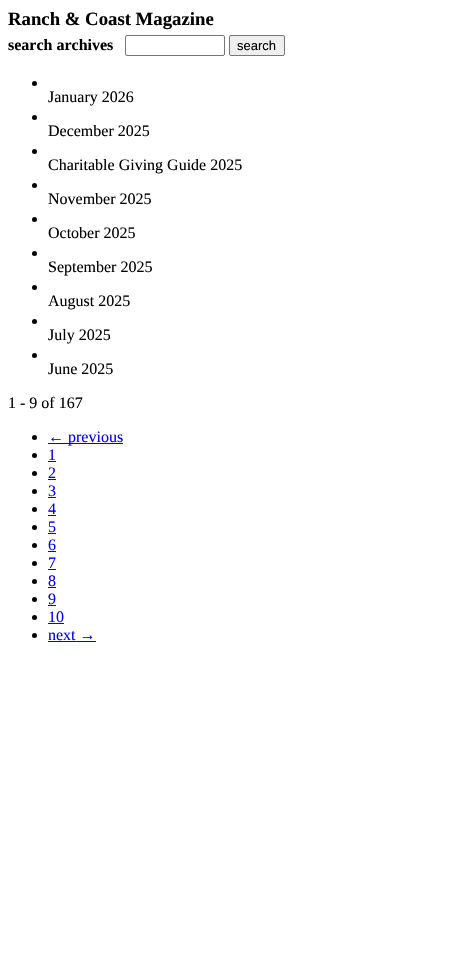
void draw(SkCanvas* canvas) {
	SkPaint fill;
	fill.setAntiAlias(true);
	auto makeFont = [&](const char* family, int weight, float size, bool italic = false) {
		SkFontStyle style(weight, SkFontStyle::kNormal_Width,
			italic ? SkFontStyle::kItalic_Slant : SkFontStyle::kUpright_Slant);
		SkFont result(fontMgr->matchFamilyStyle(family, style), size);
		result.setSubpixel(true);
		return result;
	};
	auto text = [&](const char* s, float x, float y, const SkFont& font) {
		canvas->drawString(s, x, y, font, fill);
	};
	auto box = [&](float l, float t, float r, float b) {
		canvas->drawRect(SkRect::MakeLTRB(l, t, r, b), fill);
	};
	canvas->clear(0xFFFFFFFF);
	fill.setStyle(SkPaint::kStroke_Style);
	fill.setStrokeWidth(1);
	fill.setColor(0xFF767676);
	canvas->drawRoundRect(SkRect::MakeLTRB(125.5f, 35.5f, 224.5f, 55.5f), 1.5f, 1.5f, fill);
	fill.setStyle(SkPaint::kFill_Style);
	fill.setColor(0xFFEFEFEF);
	canvas->drawRoundRect(SkRect::MakeLTRB(229.5f, 35.5f, 284.5f, 55.5f), 1.5f, 1.5f, fill);
	fill.setStyle(SkPaint::kStroke_Style);
	fill.setColor(0xFF767676);
	canvas->drawRoundRect(SkRect::MakeLTRB(229.5f, 35.5f, 284.5f, 55.5f), 1.5f, 1.5f, fill);
	fill.setStyle(SkPaint::kFill_Style);
	fill.setColor(0xFF000000);
	canvas->drawCircle(34.5f, 83.5f, 2.5f, fill);
	canvas->drawCircle(34.5f, 117.5f, 2.5f, fill);
	canvas->drawCircle(34.5f, 151.5f, 2.5f, fill);
	canvas->drawCircle(34.5f, 185.5f, 2.5f, fill);
	canvas->drawCircle(34.5f, 219.5f, 2.5f, fill);
	canvas->drawCircle(34.5f, 253.5f, 2.5f, fill);
	canvas->drawCircle(34.5f, 287.5f, 2.5f, fill);
	canvas->drawCircle(34.5f, 321.5f, 2.5f, fill);
	canvas->drawCircle(34.5f, 355.5f, 2.5f, fill);
	canvas->drawCircle(34.5f, 437.5f, 2.5f, fill);
	fill.setColor(0xFF0000EE);
	box(48, 443, 123, 444);
	fill.setColor(0xFF000000);
	canvas->drawCircle(34.5f, 455.5f, 2.5f, fill);
	fill.setColor(0xFF0000EE);
	box(48, 461, 56, 462);
	fill.setColor(0xFF000000);
	canvas->drawCircle(34.5f, 473.5f, 2.5f, fill);
	fill.setColor(0xFF0000EE);
	box(48, 479, 56, 480);
	fill.setColor(0xFF000000);
	canvas->drawCircle(34.5f, 491.5f, 2.5f, fill);
	fill.setColor(0xFF0000EE);
	box(48, 497, 56, 498);
	fill.setColor(0xFF000000);
	canvas->drawCircle(34.5f, 509.5f, 2.5f, fill);
	fill.setColor(0xFF0000EE);
	box(48, 515, 56, 516);
	fill.setColor(0xFF000000);
	canvas->drawCircle(34.5f, 527.5f, 2.5f, fill);
	fill.setColor(0xFF0000EE);
	box(48, 533, 56, 534);
	fill.setColor(0xFF000000);
	canvas->drawCircle(34.5f, 545.5f, 2.5f, fill);
	fill.setColor(0xFF0000EE);
	box(48, 551, 56, 552);
	fill.setColor(0xFF000000);
	canvas->drawCircle(34.5f, 563.5f, 2.5f, fill);
	fill.setColor(0xFF0000EE);
	box(48, 569, 56, 570);
	fill.setColor(0xFF000000);
	canvas->drawCircle(34.5f, 581.5f, 2.5f, fill);
	fill.setColor(0xFF0000EE);
	box(48, 587, 56, 588);
	fill.setColor(0xFF000000);
	canvas->drawCircle(34.5f, 599.5f, 2.5f, fill);
	fill.setColor(0xFF0000EE);
	box(48, 605, 56, 606);
	fill.setColor(0xFF000000);
	canvas->drawCircle(34.5f, 617.5f, 2.5f, fill);
	fill.setColor(0xFF0000EE);
	box(48, 623, 64, 624);
	fill.setColor(0xFF000000);
	canvas->drawCircle(34.5f, 635.5f, 2.5f, fill);
	fill.setColor(0xFF0000EE);
	box(48, 641, 96, 642);
	auto font1 = makeFont("Liberation Serif", 700, 18.75f);
	fill.setColor(0xFF000000);
	text("Ranch & Coast Magazine", 8, 25, font1);
	auto font2 = makeFont("Liberation Serif", 700, 16);
	text("search archives", 8, 50, font2);
	auto font3 = makeFont("Liberation Sans", 400, 13);
	text("search", 237, 50, font3);
	auto font4 = makeFont("Liberation Serif", 400, 16);
	text("January 2026", 48, 102, font4);
	text("December 2025", 48, 136, font4);
	text("Charitable Giving Guide 2025", 48, 170, font4);
	text("November 2025", 48, 204, font4);
	text("October 2025", 48, 238, font4);
	text("September 2025", 48, 272, font4);
	text("August 2025", 48, 306, font4);
	text("July 2025", 48, 340, font4);
	text("June 2025", 48, 374, font4);
	text("1 - 9 of 167", 8, 408, font4);
	fill.setColor(0xFF0000EE);
	text("← previous", 48, 442, font4);
	text("1", 48, 460, font4);
	text("2", 48, 478, font4);
	text("3", 48, 496, font4);
	text("4", 48, 514, font4);
	text("5", 48, 532, font4);
	text("6", 48, 550, font4);
	text("7", 48, 568, font4);
	text("8", 48, 586, font4);
	text("9", 48, 604, font4);
	text("10", 48, 622, font4);
	text("next →", 48, 640, font4);
}
